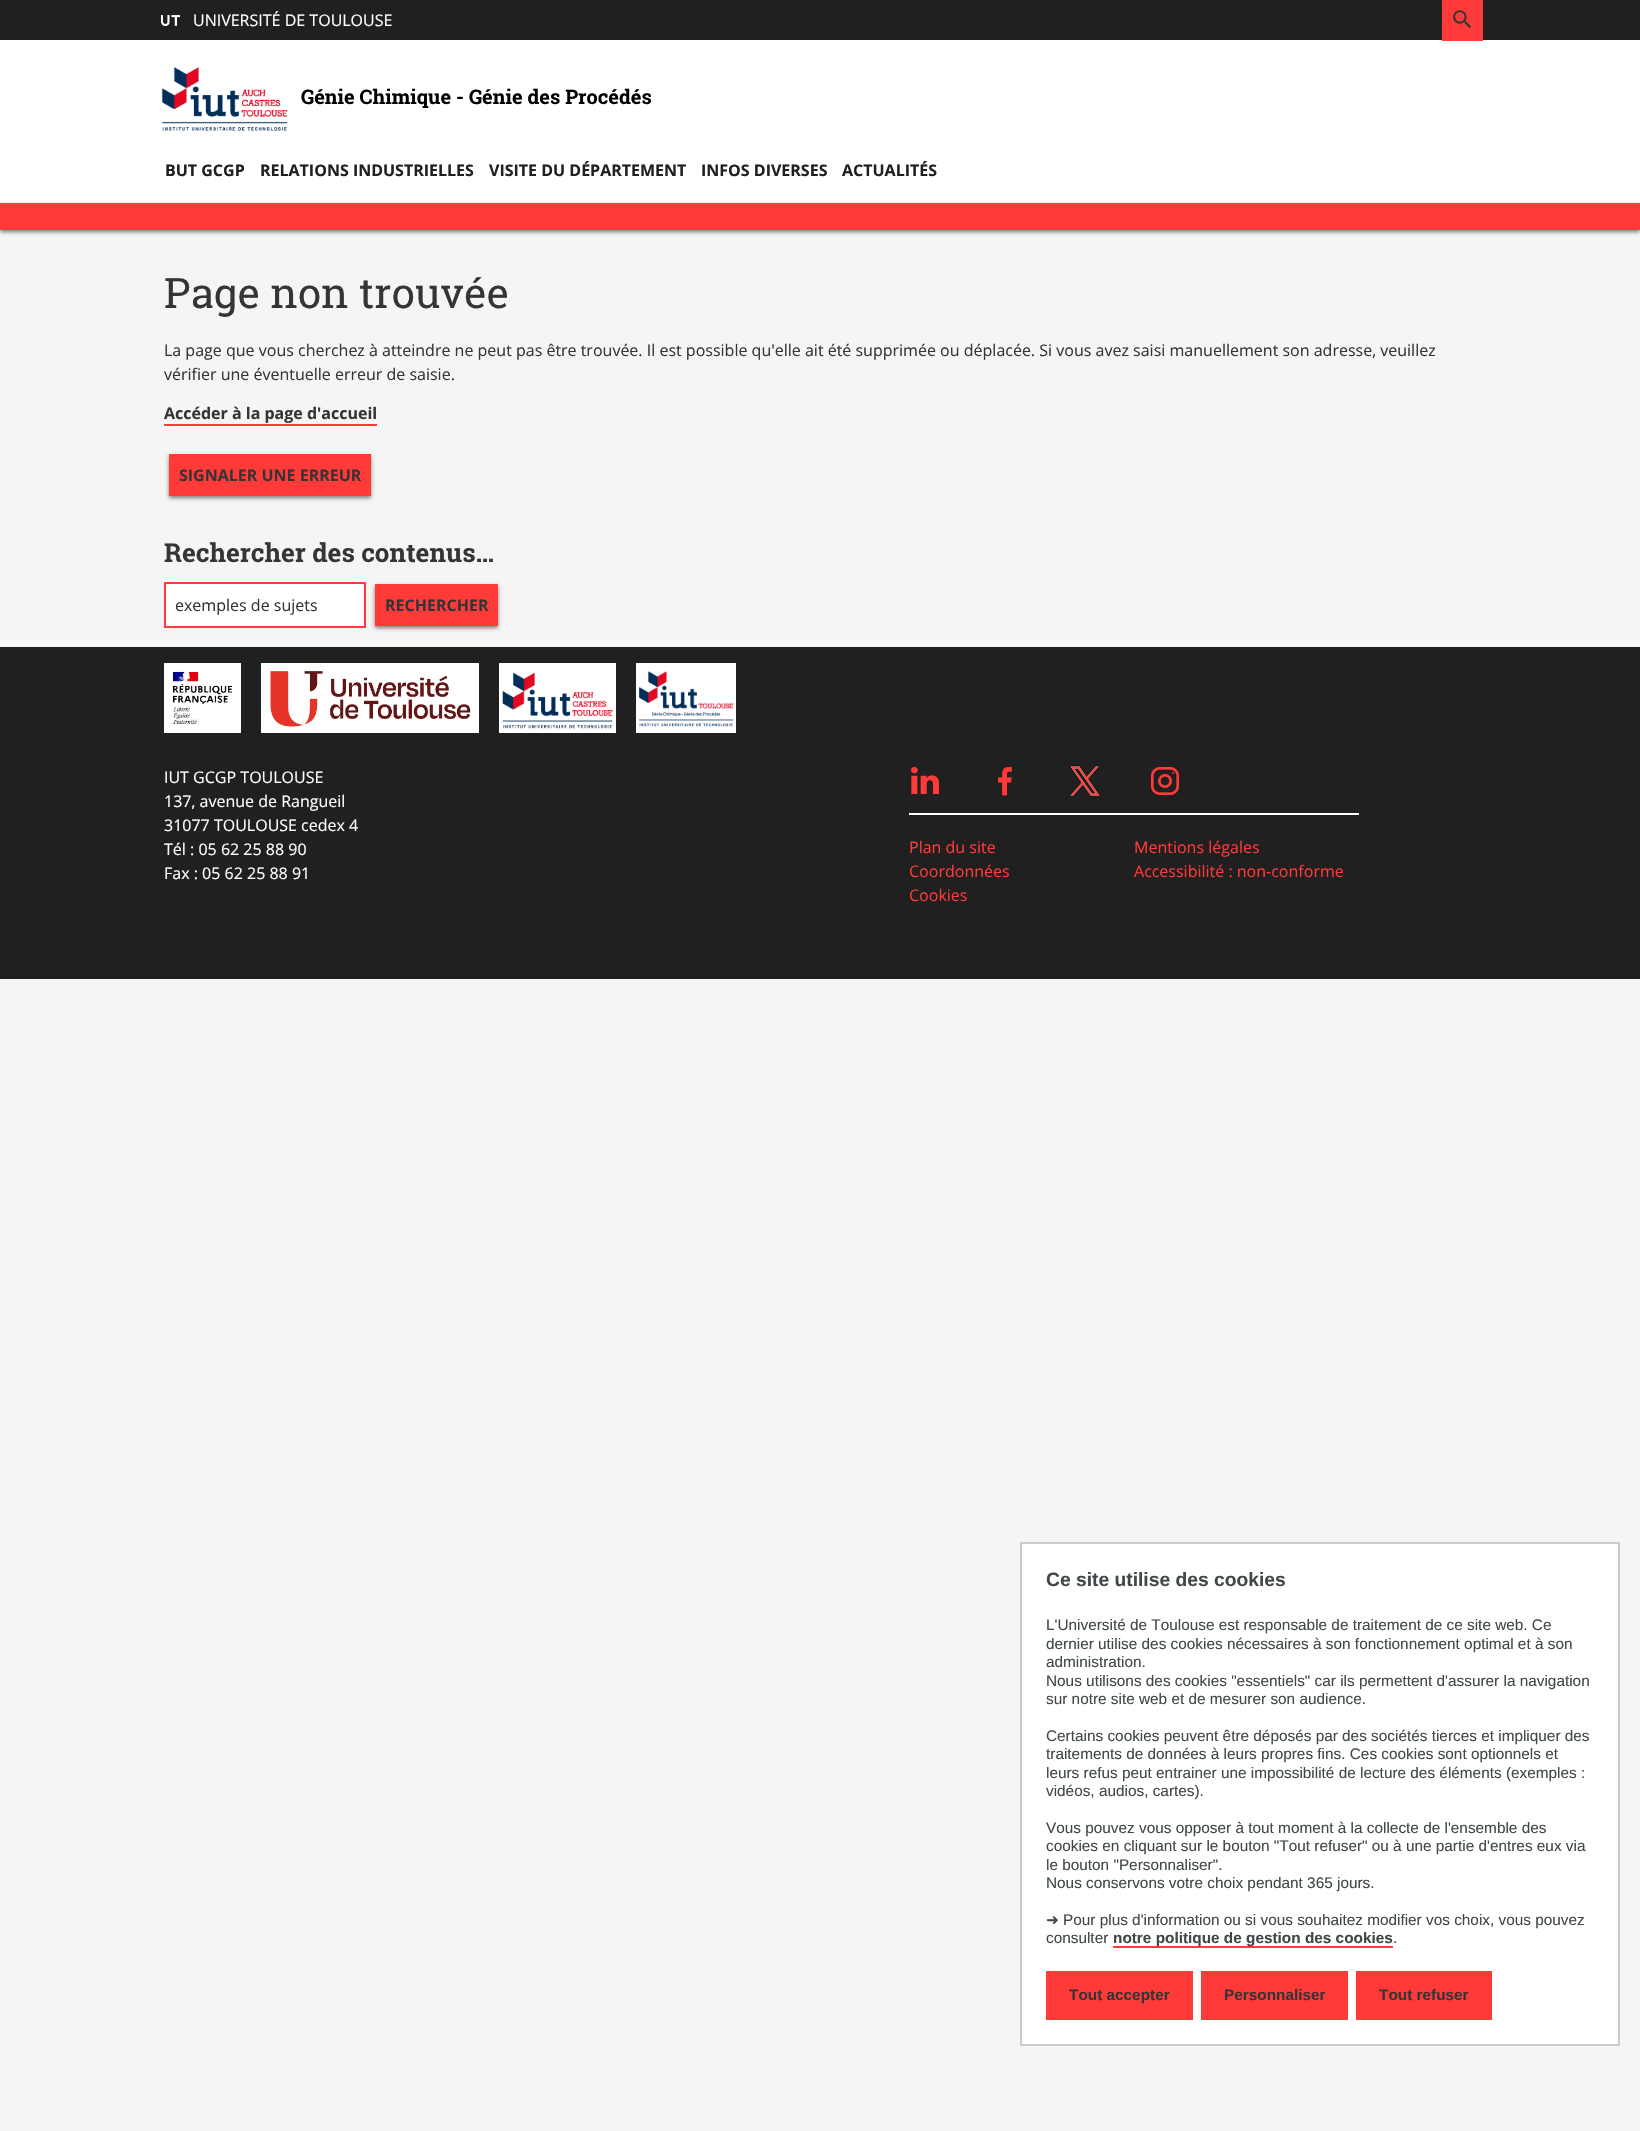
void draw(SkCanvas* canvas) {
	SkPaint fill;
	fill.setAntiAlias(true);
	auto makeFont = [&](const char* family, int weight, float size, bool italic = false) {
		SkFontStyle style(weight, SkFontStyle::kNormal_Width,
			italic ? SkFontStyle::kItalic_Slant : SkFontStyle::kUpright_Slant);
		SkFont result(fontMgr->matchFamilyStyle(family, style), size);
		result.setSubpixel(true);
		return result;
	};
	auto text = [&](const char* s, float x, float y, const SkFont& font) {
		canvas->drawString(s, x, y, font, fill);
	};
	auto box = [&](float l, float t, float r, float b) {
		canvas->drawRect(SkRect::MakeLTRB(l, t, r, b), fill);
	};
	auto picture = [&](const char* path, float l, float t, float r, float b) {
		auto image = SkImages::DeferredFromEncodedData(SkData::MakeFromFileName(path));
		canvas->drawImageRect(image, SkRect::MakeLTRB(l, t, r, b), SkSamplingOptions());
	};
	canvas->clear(0xFFF5F5F5);
	fill.setColor(0xFFFFFFFF);
	box(0, 40, 1640, 203);
	fill.setColor(0xFF202020);
	box(0, 0, 1640, 40);
	picture("image0.png", 160, 15, 181, 26);
	fill.setColor(0xFFFF3A39);
	box(1442, 0, 1483, 41);
	picture("image1.png", 1453, 10, 1472, 29);
	picture("image2.png", 161, 67, 288, 131);
	fill.setColor(0x80000000);
	fill.setMaskFilter(SkMaskFilter::MakeBlur(kNormal_SkBlurStyle, 2));
	canvas->drawRect(SkRect::MakeLTRB(0, 205, 1640, 232), fill);
	fill.setMaskFilter(nullptr);
	fill.setColor(0xFFFF3A39);
	box(0, 203, 1640, 230);
	box(164, 424, 377, 426);
	fill.setColor(0x80000000);
	fill.setMaskFilter(SkMaskFilter::MakeBlur(kNormal_SkBlurStyle, 2));
	canvas->drawRect(SkRect::MakeLTRB(169, 456, 371, 498), fill);
	fill.setMaskFilter(nullptr);
	fill.setColor(0xFFFF3A39);
	box(169, 454, 371, 496);
	fill.setColor(0xFFFFFFFF);
	canvas->drawRect(SkRect::MakeLTRB(165, 583, 365, 627), fill);
	fill.setStyle(SkPaint::kStroke_Style);
	fill.setStrokeWidth(2);
	fill.setColor(0xFFFF3A39);
	canvas->drawRect(SkRect::MakeLTRB(165, 583, 365, 627), fill);
	fill.setStyle(SkPaint::kFill_Style);
	fill.setColor(0x80000000);
	fill.setMaskFilter(SkMaskFilter::MakeBlur(kNormal_SkBlurStyle, 2));
	canvas->drawRect(SkRect::MakeLTRB(375, 586, 498, 628), fill);
	fill.setMaskFilter(nullptr);
	fill.setColor(0xFFFF3A39);
	box(375, 584, 498, 626);
	fill.setColor(0xFF202020);
	box(0, 647, 1640, 979);
	picture("image3.png", 164, 663, 241, 733);
	picture("image4.png", 261, 663, 479, 733);
	picture("image5.png", 499, 663, 616, 733);
	picture("image6.png", 636, 663, 736, 733);
	fill.setColor(0xFFFFFFFF);
	box(909, 813, 1359, 815);
	fill.setColor(0xFFFF3A39);
	box(911, 767, 939, 794);
	picture("image7.png", 909, 765, 941, 797);
	box(998, 767, 1012, 796);
	picture("image8.png", 989, 765, 1021, 797);
	box(1070, 766, 1100, 797);
	picture("image9.png", 1069, 765, 1101, 797);
	box(1151, 767, 1179, 795);
	picture("image10.png", 1149, 765, 1181, 797);
	fill.setColor(0xFFFFFFFF);
	canvas->drawRect(SkRect::MakeLTRB(1021, 1543, 1619, 2045), fill);
	fill.setStyle(SkPaint::kStroke_Style);
	fill.setColor(0xFFCCCCCC);
	canvas->drawRect(SkRect::MakeLTRB(1021, 1543, 1619, 2045), fill);
	fill.setStyle(SkPaint::kFill_Style);
	fill.setColor(0xFFFF3A39);
	box(1113, 1946, 1393, 1948);
	box(1046, 1971, 1193, 2020);
	box(1201, 1971, 1348, 2020);
	box(1356, 1971, 1492, 2020);
	auto font1 = makeFont("Open Sans", 400, 16);
	fill.setColor(0xFFFFFFFF);
	text("UNIVERSITÉ DE TOULOUSE", 193, 26, font1);
	auto font2 = makeFont("Roboto Slab", 700, 20);
	fill.setColor(0xFF000000);
	text("Génie Chimique - Génie des Procédés", 301, 104, font2);
	auto font3 = makeFont("Open Sans", 700, 16);
	fill.setColor(0xFF202020);
	text("BUT GCGP", 165, 176, font3);
	text("RELATIONS INDUSTRIELLES", 260, 176, font3);
	text("VISITE DU DÉPARTEMENT", 489, 176, font3);
	text("INFOS DIVERSES", 701, 176, font3);
	text("ACTUALITÉS", 842, 176, font3);
	auto font4 = makeFont("Roboto Slab", 400, 42);
	fill.setColor(0xFF353535);
	text("Page non trouvée", 164, 308, font4);
	text("La page que vous cherchez à atteindre ne peut pas être trouvée. Il est possible qu'elle ait été supprimée ou déplacée. Si vous avez saisi manuellement son adresse, veuillez", 164, 356, font1);
	text("vérifier une éventuelle erreur de saisie.", 164, 380, font1);
	text("Accéder à la page d'accueil", 164, 419, font3);
	text("SIGNALER UNE ERREUR", 179, 481, font3);
	auto font5 = makeFont("Roboto Slab", 700, 26);
	text("Rechercher des contenus…", 164, 562, font5);
	text("exemples de sujets", 175, 611, font1);
	text("RECHERCHER", 385, 611, font3);
	fill.setColor(0xFFFFFFFF);
	text("IUT GCGP TOULOUSE", 164, 783, font1);
	text("137, avenue de Rangueil", 164, 807, font1);
	text("31077 TOULOUSE cedex 4", 164, 831, font1);
	text("Tél : 05 62 25 88 90", 164, 855, font1);
	text("Fax : 05 62 25 88 91", 164, 879, font1);
	fill.setColor(0xFFFF3A39);
	text("Plan du site", 909, 853, font1);
	text("Mentions légales", 1134, 853, font1);
	text("Coordonnées", 909, 877, font1);
	text("Accessibilité : non-conforme", 1134, 877, font1);
	text("Cookies", 909, 901, font1);
	auto font6 = makeFont("Liberation Sans", 700, 19.25f);
	fill.setColor(0xFF404849);
	text("Ce site utilise des cookies", 1046, 1586, font6);
	auto font7 = makeFont("Liberation Sans", 400, 15.35f);
	text("L'Université de Toulouse est responsable de traitement de ce site web. Ce", 1046, 1630, font7);
	text("dernier utilise des cookies nécessaires à son fonctionnement optimal et à son", 1046, 1649, font7);
	text("administration.", 1046, 1667, font7);
	text("Nous utilisons des cookies \"essentiels\" car ils permettent d'assurer la navigation", 1046, 1686, font7);
	text("sur notre site web et de mesurer son audience.", 1046, 1704, font7);
	text("Certains cookies peuvent être déposés par des sociétés tierces et impliquer des", 1046, 1741, font7);
	text("traitements de données à leurs propres fins. Ces cookies sont optionnels et", 1046, 1759, font7);
	text("leurs refus peut entrainer une impossibilité de lecture des éléments (exemples :", 1046, 1778, font7);
	text("vidéos, audios, cartes).", 1046, 1796, font7);
	text("Vous pouvez vous opposer à tout moment à la collecte de l'ensemble des", 1046, 1833, font7);
	text("cookies en cliquant sur le bouton \"Tout refuser\" ou à une partie d'entres eux via", 1046, 1851, font7);
	text("le bouton \"Personnaliser\".", 1046, 1870, font7);
	text("Nous conservons votre choix pendant 365 jours.", 1046, 1888, font7);
	auto font8 = makeFont("DejaVu Sans", 400, 15.35f);
	text("➜", 1046, 1925, font8);
	text("Pour plus d'information ou si vous souhaitez modifier vos choix, vous pouvez", 1063, 1925, font7);
	text("consulter", 1046, 1943, font7);
	auto font9 = makeFont("Liberation Sans", 700, 15.35f);
	text("notre politique de gestion des cookies", 1113, 1943, font9);
	text(".", 1393, 1943, font7);
	fill.setColor(0xFF353535);
	text("Tout accepter", 1069, 2000, font9);
	text("Personnaliser", 1224, 2000, font9);
	text("Tout refuser", 1379, 2000, font9);
}
